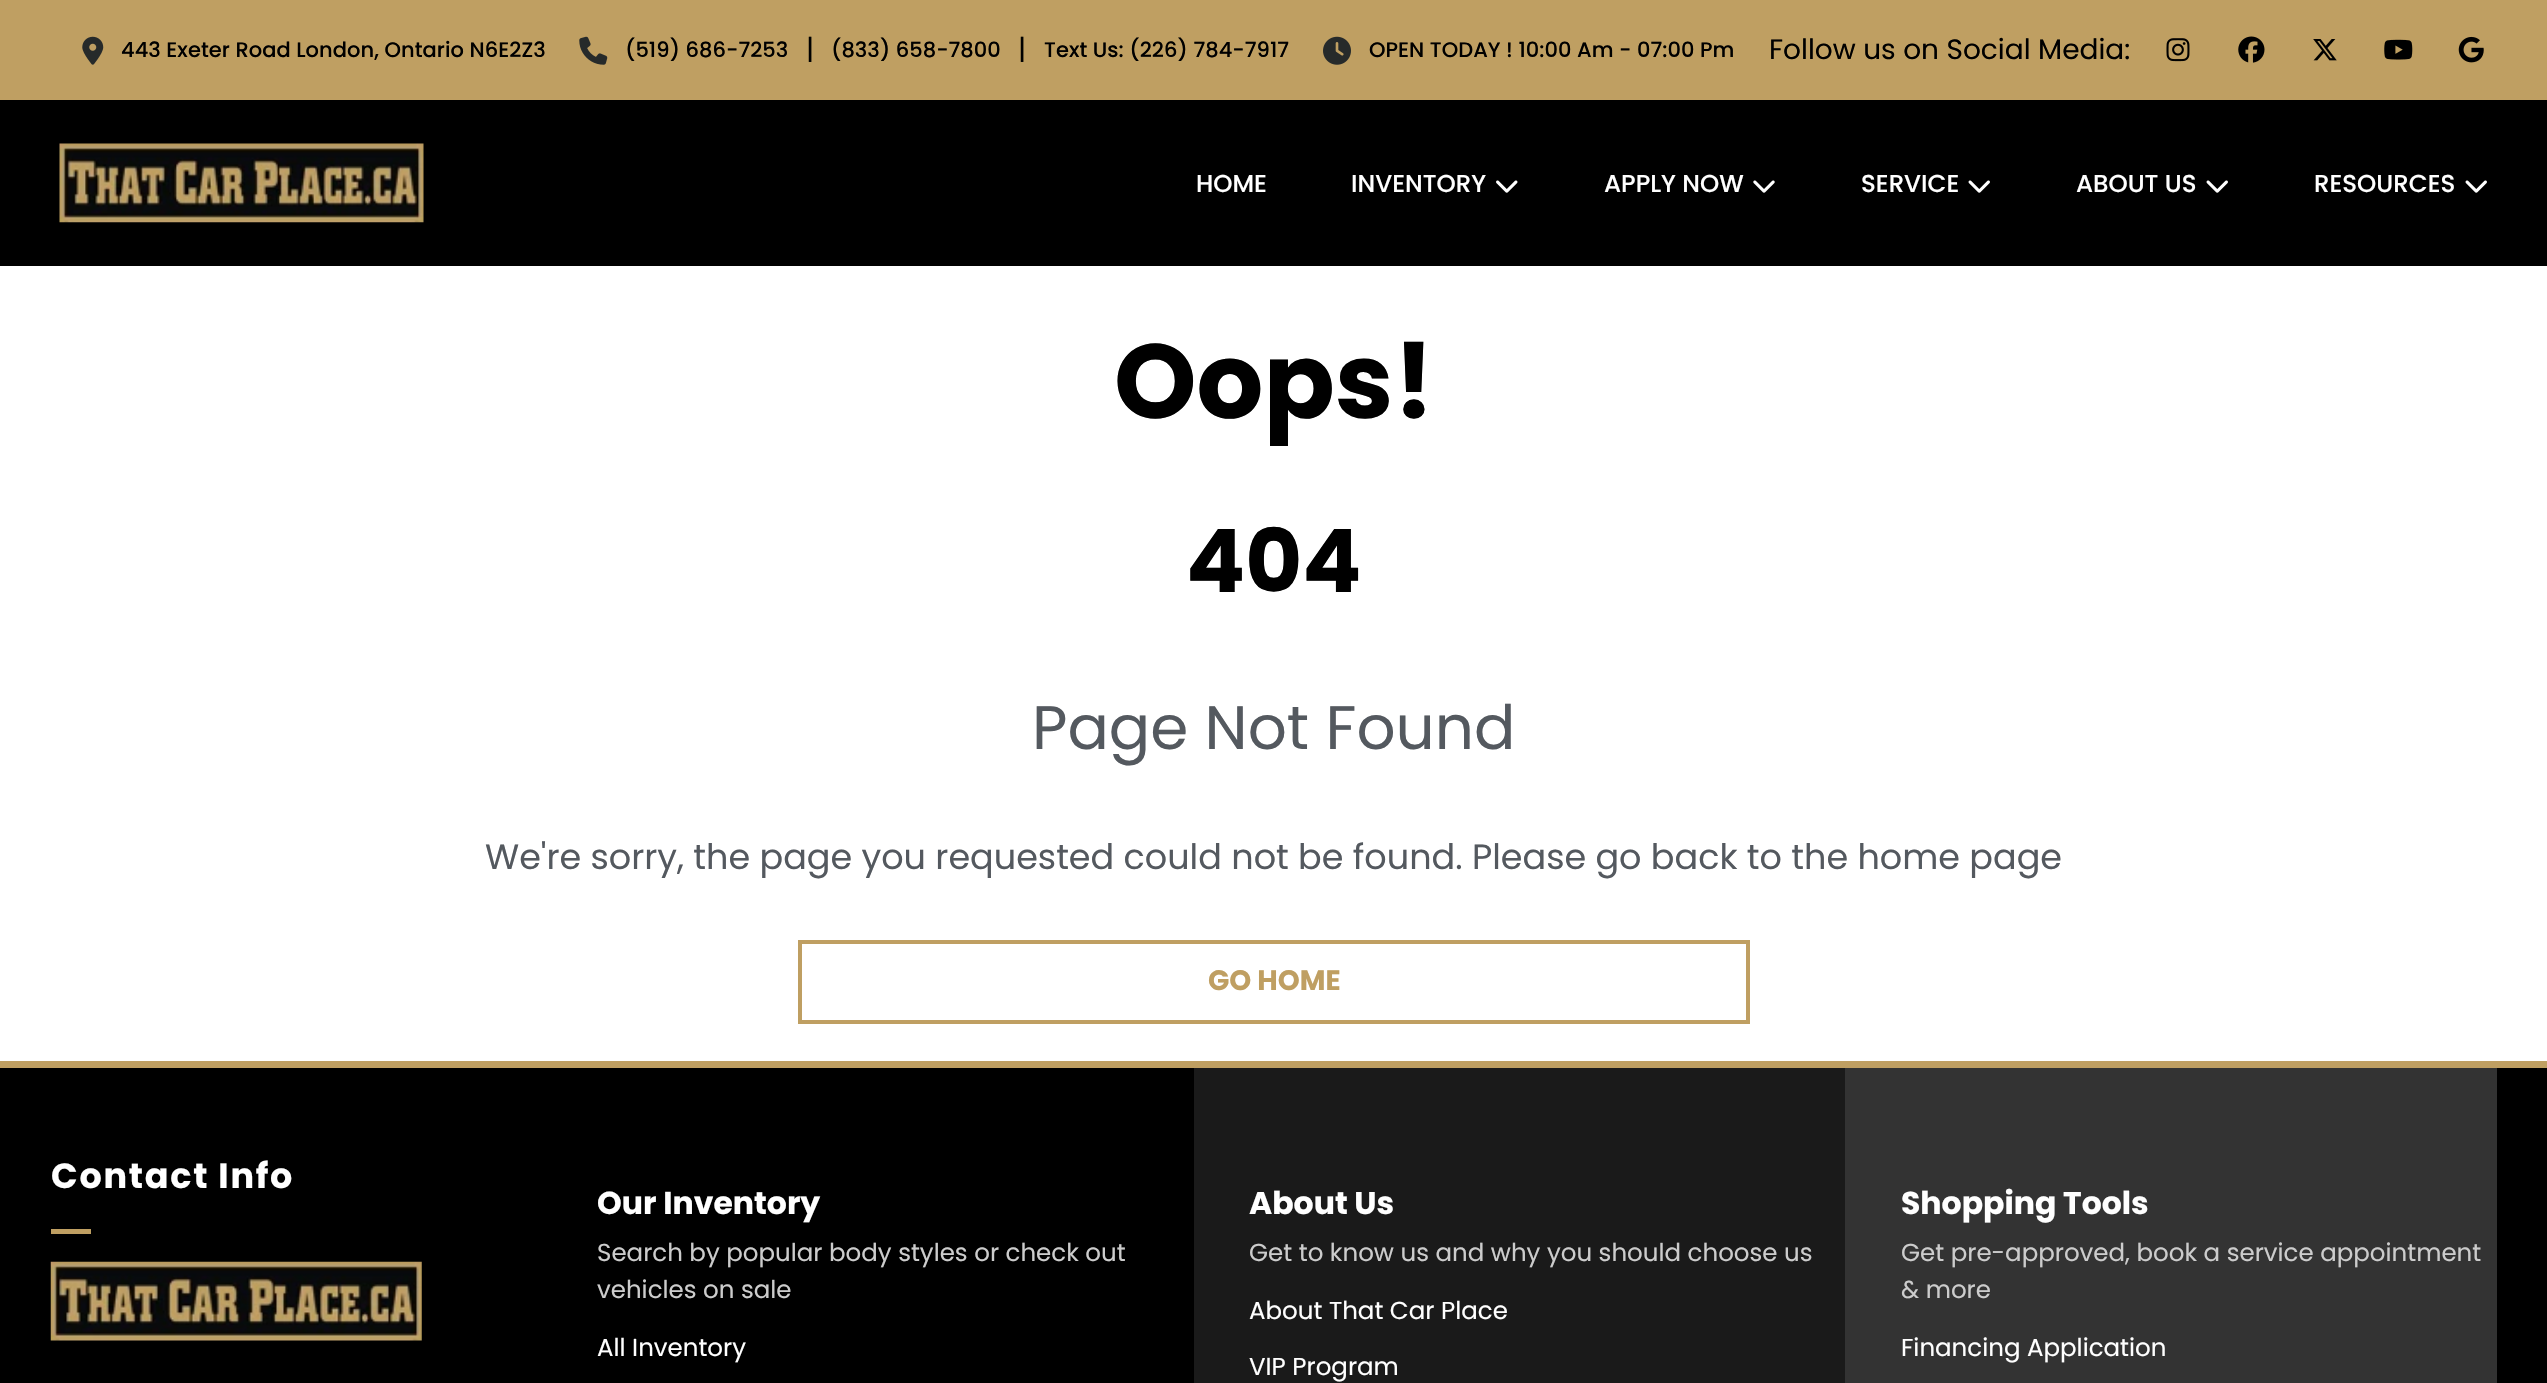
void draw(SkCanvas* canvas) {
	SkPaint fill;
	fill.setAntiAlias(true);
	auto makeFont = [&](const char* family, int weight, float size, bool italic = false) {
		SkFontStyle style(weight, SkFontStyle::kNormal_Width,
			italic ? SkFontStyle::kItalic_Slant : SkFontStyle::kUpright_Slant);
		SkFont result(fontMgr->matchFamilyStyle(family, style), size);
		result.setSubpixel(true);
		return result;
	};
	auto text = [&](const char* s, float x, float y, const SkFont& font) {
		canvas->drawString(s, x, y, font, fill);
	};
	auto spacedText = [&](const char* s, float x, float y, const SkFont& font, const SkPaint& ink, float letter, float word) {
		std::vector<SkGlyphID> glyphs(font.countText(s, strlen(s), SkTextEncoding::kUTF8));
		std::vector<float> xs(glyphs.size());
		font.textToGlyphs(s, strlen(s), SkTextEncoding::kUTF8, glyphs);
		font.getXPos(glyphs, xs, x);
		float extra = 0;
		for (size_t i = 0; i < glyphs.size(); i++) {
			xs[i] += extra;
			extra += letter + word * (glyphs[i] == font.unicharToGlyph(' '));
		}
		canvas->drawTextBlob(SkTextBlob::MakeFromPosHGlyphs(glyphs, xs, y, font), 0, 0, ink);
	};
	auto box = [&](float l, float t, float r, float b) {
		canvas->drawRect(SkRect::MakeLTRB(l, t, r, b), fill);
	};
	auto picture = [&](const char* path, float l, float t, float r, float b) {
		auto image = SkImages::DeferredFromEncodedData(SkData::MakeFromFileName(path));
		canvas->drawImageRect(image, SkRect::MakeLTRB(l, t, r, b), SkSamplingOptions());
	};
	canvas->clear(0xFFFFFFFF);
	fill.setColor(0xFFBF9F62);
	box(0, 0, 2547, 100);
	picture("image0.png", 82, 36, 104, 65);
	picture("image1.png", 579, 36, 608, 65);
	picture("image2.png", 1323, 36, 1351, 65);
	picture("image3.png", 2166, 38, 2190, 62);
	picture("image4.png", 2238, 36, 2265, 63);
	picture("image5.png", 2313, 39, 2337, 61);
	picture("image6.png", 2384, 39, 2413, 60);
	picture("image7.png", 2458, 36, 2484, 63);
	fill.setColor(0xFF000000);
	box(0, 100, 2547, 266);
	picture("image8.png", 59, 143, 424, 223);
	picture("image9.png", 1496, 180, 1518, 193);
	picture("image10.png", 1753, 180, 1775, 193);
	picture("image11.png", 1968, 180, 1990, 193);
	picture("image11.png", 2206, 180, 2228, 193);
	picture("image11.png", 2465, 180, 2487, 193);
	fill.setStyle(SkPaint::kStroke_Style);
	fill.setStrokeWidth(4);
	fill.setColor(0xFFBF9F62);
	canvas->drawRect(SkRect::MakeLTRB(800, 942, 1748, 1022), fill);
	fill.setStyle(SkPaint::kFill_Style);
	box(0, 1061, 2547, 1068);
	fill.setColor(0xFF000000);
	box(0, 1068, 2547, 1383);
	fill.setColor(0xFFBF9F62);
	box(51, 1229, 91, 1234);
	picture("image12.png", 50, 1261, 422, 1341);
	fill.setColor(0xFF333333);
	box(1845, 1068, 2497, 1383);
	fill.setColor(0xFF1A1A1A);
	box(1194, 1068, 1845, 1383);
	auto font1 = makeFont("Poppins", 500, 21);
	fill.setColor(0xFF000000);
	spacedText("443 Exeter Road London, Ontario N6E2Z3", 121, 57, font1, fill, 0.05f, 0);
	spacedText("(519) 686-7253", 625, 57, font1, fill, 0.05f, 0);
	auto font2 = makeFont("Poppins", 400, 28);
	text("|", 806, 59, font2);
	spacedText("(833) 658-7800", 831, 57, font1, fill, 0.05f, 0);
	text("|", 1018, 59, font2);
	spacedText("Text Us: (226) 784-7917", 1044, 57, font1, fill, 0.05f, 0);
	spacedText("OPEN TODAY ! 10:00 Am - 07:00 Pm", 1369, 57, font1, fill, 0.05f, 0);
	text("Follow us on Social Media:", 1769, 59, font2);
	auto font3 = makeFont("Poppins", 500, 24.5f);
	fill.setColor(0xFFFFFFFF);
	text("HOME", 1196, 192, font3);
	text("INVENTORY", 1351, 192, font3);
	text("APPLY NOW", 1604, 192, font3);
	text("SERVICE", 1861, 192, font3);
	text("ABOUT US", 2076, 192, font3);
	text("RESOURCES", 2314, 192, font3);
	auto font4 = makeFont("Poppins", 700, 105);
	fill.setColor(0xFF000000);
	text("Oops!", 1114, 418, font4);
	auto font5 = makeFont("Poppins", 700, 87.5f);
	text("404", 1186, 592, font5);
	auto font6 = makeFont("Poppins", 400, 61.25f);
	fill.setColor(0xFF54595F);
	text("Page Not Found", 1032, 749, font6);
	auto font7 = makeFont("Poppins", 400, 35);
	text("We're sorry, the page you requested could not be found. Please go back to the home page", 485, 869, font7);
	auto font8 = makeFont("Poppins", 700, 28);
	fill.setColor(0xFFBF9F62);
	text("GO HOME", 1208, 990, font8);
	auto font9 = makeFont("Poppins", 700, 35);
	fill.setColor(0xFFFFFFFF);
	spacedText("Contact Info", 51, 1188, font9, fill, 1.75f, 0);
	auto font10 = makeFont("Poppins", 700, 31.5f);
	text("Our Inventory", 597, 1214, font10);
	auto font11 = makeFont("Poppins", 400, 24.5f);
	fill.setColor(0xFFCCCCCC);
	text("Search by popular body styles or check out", 597, 1261, font11);
	text("vehicles on sale", 597, 1298, font11);
	fill.setColor(0xFFFFFFFF);
	text("All Inventory", 597, 1356, font11);
	text("About Us", 1249, 1214, font10);
	fill.setColor(0xFFCCCCCC);
	text("Get to know us and why you should choose us", 1249, 1261, font11);
	fill.setColor(0xFFFFFFFF);
	text("About That Car Place", 1249, 1319, font11);
	text("VIP Program", 1249, 1375, font11);
	text("Shopping Tools", 1901, 1214, font10);
	fill.setColor(0xFFCCCCCC);
	text("Get pre-approved, book a service appointment", 1901, 1261, font11);
	text("& more", 1901, 1298, font11);
	fill.setColor(0xFFFFFFFF);
	text("Financing Application", 1901, 1356, font11);
}
